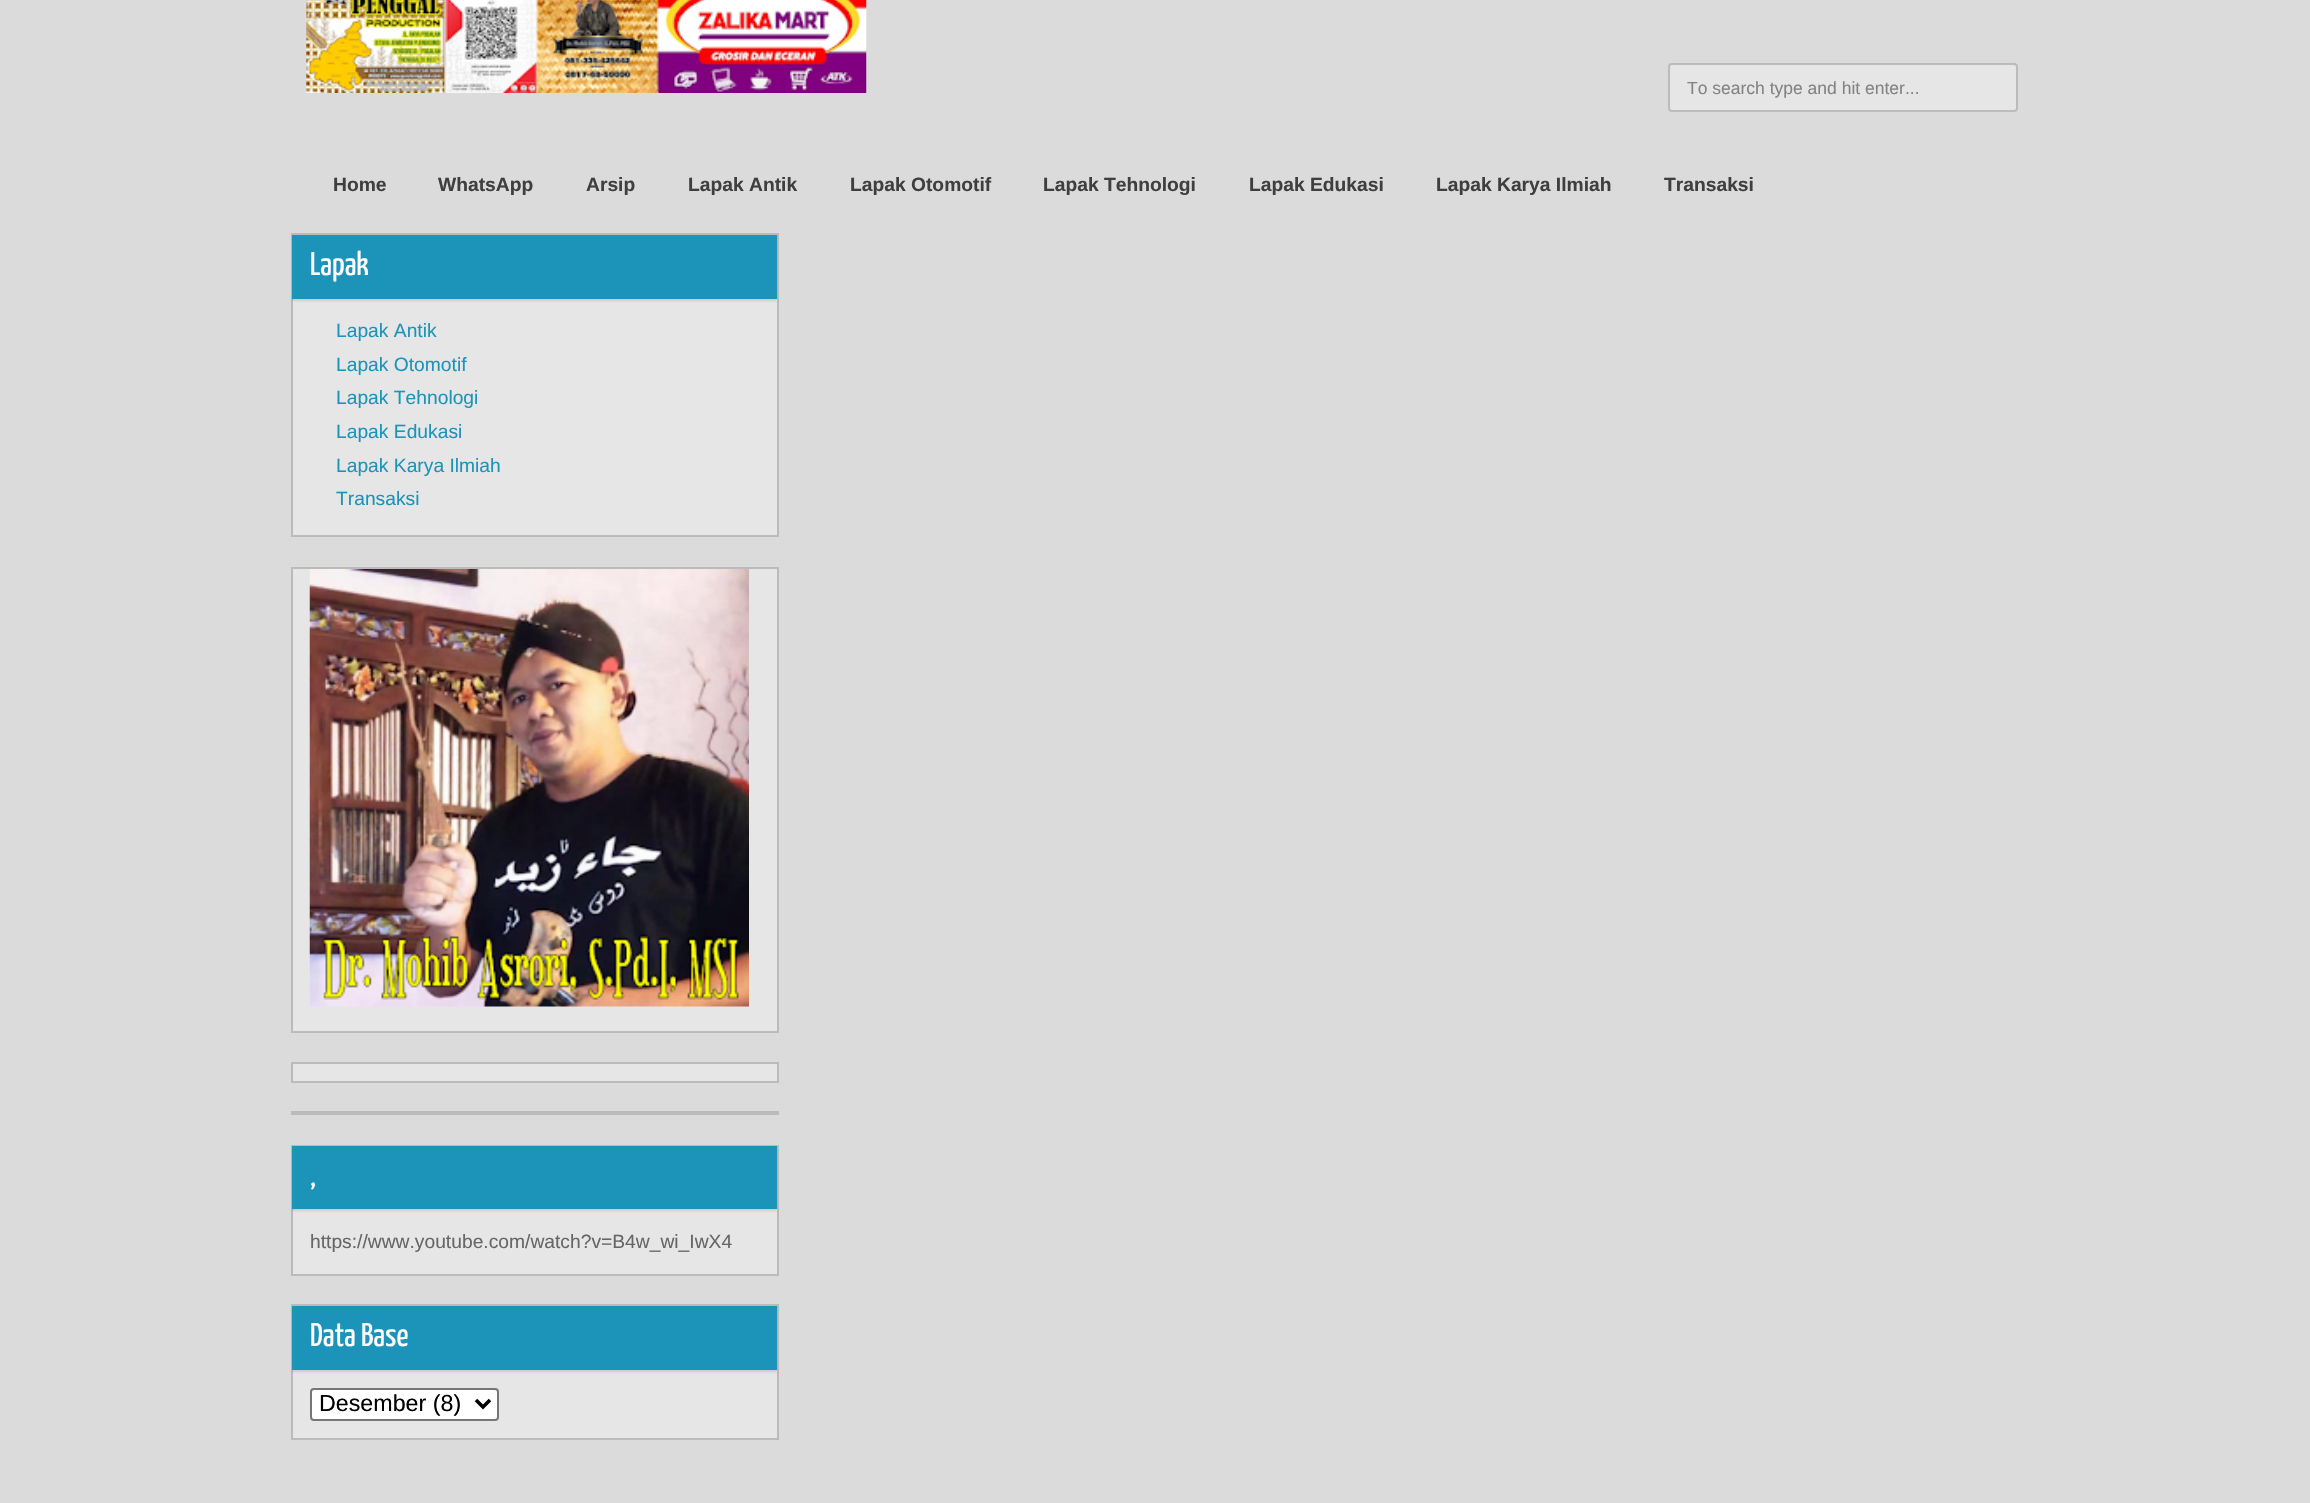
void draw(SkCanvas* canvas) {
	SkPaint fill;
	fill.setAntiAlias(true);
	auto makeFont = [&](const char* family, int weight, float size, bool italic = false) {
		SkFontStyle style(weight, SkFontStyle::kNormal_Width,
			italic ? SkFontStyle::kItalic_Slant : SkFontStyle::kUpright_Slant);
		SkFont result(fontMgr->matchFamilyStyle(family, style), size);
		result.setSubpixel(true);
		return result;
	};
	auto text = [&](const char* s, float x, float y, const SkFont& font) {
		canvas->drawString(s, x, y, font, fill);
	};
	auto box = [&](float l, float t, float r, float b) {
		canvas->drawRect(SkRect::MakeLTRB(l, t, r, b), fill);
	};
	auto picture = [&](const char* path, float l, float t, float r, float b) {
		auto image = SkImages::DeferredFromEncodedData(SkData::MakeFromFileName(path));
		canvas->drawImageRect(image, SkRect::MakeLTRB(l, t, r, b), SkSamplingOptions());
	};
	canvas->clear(0xFFDBDBDB);
	picture("image0.png", 306, 0, 867, 93);
	fill.setColor(0xFFE6E6E6);
	canvas->drawRoundRect(SkRect::MakeLTRB(1669, 64, 2017, 111), 3, 3, fill);
	fill.setStyle(SkPaint::kStroke_Style);
	fill.setStrokeWidth(2);
	fill.setColor(0xFFBBBBBB);
	canvas->drawRoundRect(SkRect::MakeLTRB(1669, 64, 2017, 111), 3, 3, fill);
	fill.setStyle(SkPaint::kFill_Style);
	fill.setColor(0xFFE6E6E6);
	box(293, 299, 777, 535);
	fill.setStyle(SkPaint::kStroke_Style);
	fill.setColor(0xFFBBBBBB);
	canvas->drawRect(SkRect::MakeLTRB(292, 234, 778, 536), fill);
	fill.setStyle(SkPaint::kFill_Style);
	fill.setColor(0x1C000000);
	fill.setMaskFilter(SkMaskFilter::MakeBlur(kNormal_SkBlurStyle, 1));
	canvas->drawRect(SkRect::MakeLTRB(292, 236, 777, 301), fill);
	fill.setMaskFilter(nullptr);
	fill.setColor(0xFF1C94B9);
	box(292, 235, 777, 299);
	fill.setColor(0xFFE6E6E6);
	canvas->drawRect(SkRect::MakeLTRB(292, 568, 778, 1032), fill);
	fill.setStyle(SkPaint::kStroke_Style);
	fill.setColor(0xFFBBBBBB);
	canvas->drawRect(SkRect::MakeLTRB(292, 568, 778, 1032), fill);
	picture("image1.png", 309, 569, 749, 1007);
	fill.setStyle(SkPaint::kFill_Style);
	fill.setColor(0xFFE6E6E6);
	canvas->drawRect(SkRect::MakeLTRB(292, 1063, 778, 1082), fill);
	fill.setStyle(SkPaint::kStroke_Style);
	fill.setColor(0xFFBBBBBB);
	canvas->drawRect(SkRect::MakeLTRB(292, 1063, 778, 1082), fill);
	fill.setStyle(SkPaint::kFill_Style);
	box(291, 1111, 779, 1115);
	fill.setColor(0xFFE6E6E6);
	box(293, 1209, 777, 1274);
	fill.setStyle(SkPaint::kStroke_Style);
	fill.setColor(0xFFBBBBBB);
	canvas->drawRect(SkRect::MakeLTRB(292, 1146, 778, 1275), fill);
	fill.setStyle(SkPaint::kFill_Style);
	fill.setColor(0x1C000000);
	fill.setMaskFilter(SkMaskFilter::MakeBlur(kNormal_SkBlurStyle, 1));
	canvas->drawRect(SkRect::MakeLTRB(292, 1148, 777, 1211), fill);
	fill.setMaskFilter(nullptr);
	fill.setColor(0xFF1C94B9);
	box(292, 1146, 777, 1209);
	fill.setColor(0xFFE6E6E6);
	box(293, 1370, 777, 1438);
	fill.setStyle(SkPaint::kStroke_Style);
	fill.setColor(0xFFBBBBBB);
	canvas->drawRect(SkRect::MakeLTRB(292, 1305, 778, 1439), fill);
	fill.setStyle(SkPaint::kFill_Style);
	fill.setColor(0x1C000000);
	fill.setMaskFilter(SkMaskFilter::MakeBlur(kNormal_SkBlurStyle, 1));
	canvas->drawRect(SkRect::MakeLTRB(292, 1307, 777, 1372), fill);
	fill.setMaskFilter(nullptr);
	fill.setColor(0xFF1C94B9);
	box(292, 1306, 777, 1370);
	fill.setColor(0xFFFFFFFF);
	canvas->drawRoundRect(SkRect::MakeLTRB(311, 1389, 498, 1420), 3, 3, fill);
	fill.setStyle(SkPaint::kStroke_Style);
	fill.setColor(0xFF767676);
	canvas->drawRoundRect(SkRect::MakeLTRB(311, 1389, 498, 1420), 3, 3, fill);
	fill.setStrokeWidth(3.5f);
	fill.setColor(0xFF000000);
	canvas->drawPath(SkPathBuilder().moveTo(476, 1400).lineTo(483, 1407).lineTo(490, 1400).detach(), fill);
	auto font1 = makeFont("Liberation Sans", 400, 17.5f);
	fill.setStyle(SkPaint::kFill_Style);
	fill.setColor(0xFF838383);
	text("To search type and hit enter...", 1687, 94, font1);
	auto font2 = makeFont("Liberation Sans", 700, 19.25f);
	fill.setColor(0xFF3F3F3F);
	text("Home", 333, 191, font2);
	text("WhatsApp", 438, 191, font2);
	text("Arsip", 586, 191, font2);
	text("Lapak Antik", 688, 191, font2);
	text("Lapak Otomotif", 850, 191, font2);
	text("Lapak Tehnologi", 1043, 191, font2);
	text("Lapak Edukasi", 1249, 191, font2);
	text("Lapak Karya Ilmiah", 1436, 191, font2);
	text("Transaksi", 1664, 191, font2);
	auto font3 = makeFont("Yanone Kaffeesatz", 200, 33);
	fill.setColor(0xFFFFFFFF);
	text("Lapak", 310, 275, font3);
	auto font4 = makeFont("Liberation Sans", 400, 19.25f);
	fill.setColor(0xFF1C94B9);
	text("Lapak Antik", 336, 337, font4);
	text("Lapak Otomotif", 336, 371, font4);
	text("Lapak Tehnologi", 336, 404, font4);
	text("Lapak Edukasi", 336, 438, font4);
	text("Lapak Karya Ilmiah", 336, 472, font4);
	text("Transaksi", 336, 505, font4);
	fill.setColor(0xFFFFFFFF);
	text(",", 310, 1186, font3);
	fill.setColor(0xFF666666);
	text("https://www.youtube.com/watch?v=B4w_wi_IwX4", 310, 1248, font4);
	fill.setColor(0xFFFFFFFF);
	text("Data Base", 310, 1346, font3);
	auto font5 = makeFont("Liberation Sans", 400, 23.25f);
	fill.setColor(0xFF000000);
	text("Desember (8)", 319, 1411, font5);
}
